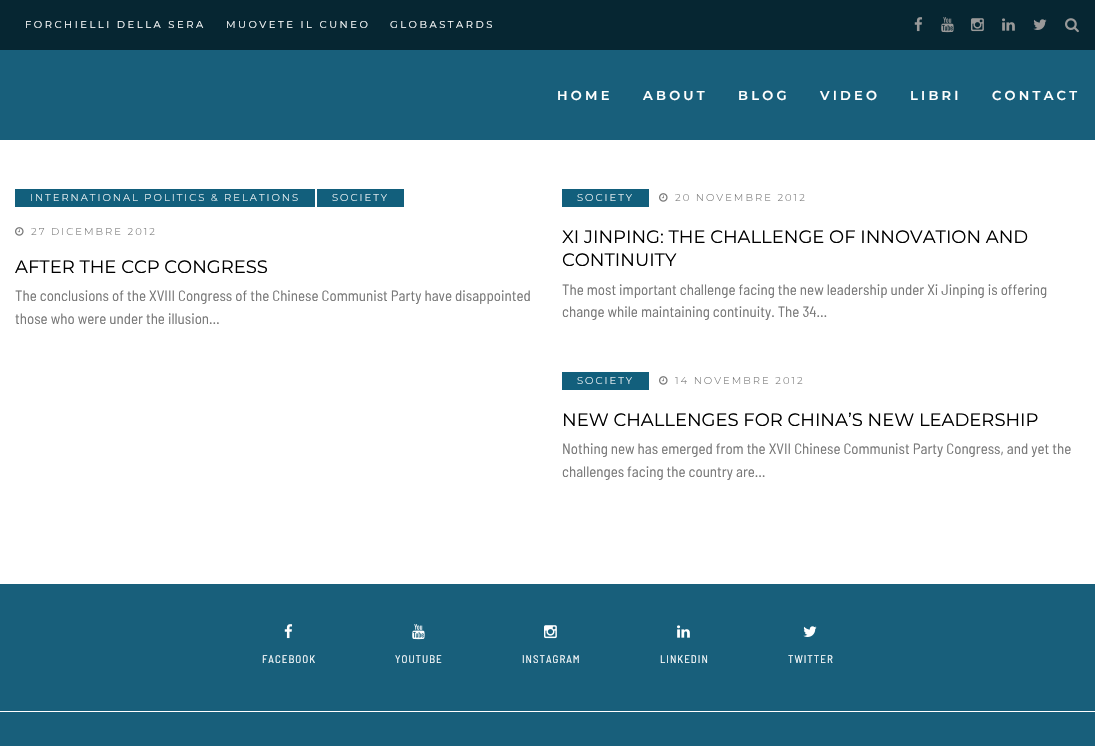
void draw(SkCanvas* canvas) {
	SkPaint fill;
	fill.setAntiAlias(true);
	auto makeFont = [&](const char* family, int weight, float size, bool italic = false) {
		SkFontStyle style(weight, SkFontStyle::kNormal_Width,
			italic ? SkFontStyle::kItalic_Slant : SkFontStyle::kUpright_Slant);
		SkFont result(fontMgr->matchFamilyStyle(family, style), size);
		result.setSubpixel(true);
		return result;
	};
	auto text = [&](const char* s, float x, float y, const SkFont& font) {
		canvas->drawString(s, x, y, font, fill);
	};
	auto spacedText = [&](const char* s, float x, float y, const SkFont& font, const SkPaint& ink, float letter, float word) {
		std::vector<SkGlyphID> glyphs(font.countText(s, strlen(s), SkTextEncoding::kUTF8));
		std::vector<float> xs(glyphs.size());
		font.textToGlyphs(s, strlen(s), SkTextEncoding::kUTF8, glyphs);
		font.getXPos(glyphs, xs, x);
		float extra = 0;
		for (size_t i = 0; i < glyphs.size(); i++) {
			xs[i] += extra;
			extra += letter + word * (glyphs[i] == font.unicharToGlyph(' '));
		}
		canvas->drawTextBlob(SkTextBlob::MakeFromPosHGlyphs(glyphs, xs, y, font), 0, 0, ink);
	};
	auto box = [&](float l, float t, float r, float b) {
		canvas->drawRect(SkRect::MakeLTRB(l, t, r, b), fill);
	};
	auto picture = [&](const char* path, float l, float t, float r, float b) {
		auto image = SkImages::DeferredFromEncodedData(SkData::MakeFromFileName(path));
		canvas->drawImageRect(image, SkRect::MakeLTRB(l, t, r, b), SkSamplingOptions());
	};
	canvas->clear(0xFFFFFFFF);
	fill.setColor(0xFF062632);
	box(0, 0, 1095, 50);
	picture("image0.png", 914, 17, 923, 32);
	picture("image1.png", 941, 17, 954, 33);
	picture("image2.png", 971, 18, 984, 32);
	picture("image3.png", 1002, 18, 1015, 31);
	picture("image4.png", 1033, 19, 1047, 30);
	picture("image5.png", 1065, 18, 1079, 33);
	fill.setColor(0xFF185F7B);
	box(0, 50, 1095, 140);
	fill.setColor(0xFF125F7C);
	box(15, 189, 315, 207);
	box(317, 189, 404, 207);
	picture("image6.png", 15, 227, 24, 236);
	box(562, 189, 649, 207);
	picture("image6.png", 659, 193, 668, 202);
	box(562, 372, 649, 390);
	picture("image6.png", 659, 376, 668, 385);
	fill.setColor(0xFF185F7B);
	box(0, 584, 1095, 746);
	fill.setColor(0xFFFFFFFF);
	box(0, 711, 1095, 712);
	picture("image7.png", 284, 624, 293, 639);
	picture("image8.png", 412, 624, 425, 640);
	picture("image9.png", 544, 625, 557, 639);
	picture("image10.png", 677, 625, 690, 638);
	picture("image11.png", 803, 626, 817, 637);
	auto font1 = makeFont("Montserrat", 400, 10);
	spacedText("FORCHIELLI DELLA SERA", 25, 28, font1, fill, 2.5f, 0);
	spacedText("MUOVETE IL CUNEO", 226, 28, font1, fill, 2.5f, 0);
	spacedText("GLOBASTARDS", 390, 28, font1, fill, 2.5f, 0);
	auto font2 = makeFont("Montserrat", 600, 13);
	spacedText("HOME", 557, 100, font2, fill, 3.25f, 0);
	spacedText("ABOUT", 643, 100, font2, fill, 3.25f, 0);
	spacedText("BLOG", 738, 100, font2, fill, 3.25f, 0);
	spacedText("VIDEO", 820, 100, font2, fill, 3.25f, 0);
	spacedText("LIBRI", 910, 100, font2, fill, 3.25f, 0);
	spacedText("CONTACT", 992, 100, font2, fill, 3.25f, 0);
	auto font3 = makeFont("Montserrat", 300, 10);
	spacedText("INTERNATIONAL POLITICS & RELATIONS", 30, 201, font3, fill, 2, 0);
	spacedText("SOCIETY", 332, 201, font3, fill, 2, 0);
	fill.setColor(0xFF777777);
	spacedText("27 DICEMBRE 2012", 31, 235, font3, fill, 2, 0);
	auto font4 = makeFont("Montserrat", 400, 18);
	fill.setColor(0xFF000000);
	text("AFTER THE CCP CONGRESS", 15, 273, font4);
	auto font5 = makeFont("Barlow Semi Condensed", 400, 15);
	fill.setColor(0xFF777777);
	text("The conclusions of the XVIII Congress of the Chinese Communist Party have disappointed", 15, 301, font5);
	text("those who were under the illusion…", 15, 324, font5);
	fill.setColor(0xFFFFFFFF);
	spacedText("SOCIETY", 577, 201, font3, fill, 2, 0);
	fill.setColor(0xFF777777);
	spacedText("20 NOVEMBRE 2012", 675, 201, font3, fill, 2, 0);
	fill.setColor(0xFF000000);
	text("XI JINPING: THE CHALLENGE OF INNOVATION AND", 562, 243, font4);
	text("CONTINUITY", 562, 266, font4);
	fill.setColor(0xFF777777);
	text("The most important challenge facing the new leadership under Xi Jinping is offering", 562, 295, font5);
	text("change while maintaining continuity. The 34…", 562, 317, font5);
	fill.setColor(0xFFFFFFFF);
	spacedText("SOCIETY", 577, 384, font3, fill, 2, 0);
	fill.setColor(0xFF777777);
	spacedText("14 NOVEMBRE 2012", 675, 384, font3, fill, 2, 0);
	fill.setColor(0xFF000000);
	text("NEW CHALLENGES FOR CHINA’S NEW LEADERSHIP", 562, 426, font4);
	fill.setColor(0xFF777777);
	text("Nothing new has emerged from the XVII Chinese Communist Party Congress, and yet the", 562, 454, font5);
	text("challenges facing the country are…", 562, 477, font5);
	auto font6 = makeFont("Barlow Semi Condensed", 400, 11);
	fill.setColor(0xFFFFFFFF);
	spacedText("FACEBOOK", 262, 663, font6, fill, 1, 0);
	spacedText("YOUTUBE", 395, 663, font6, fill, 1, 0);
	spacedText("INSTAGRAM", 522, 663, font6, fill, 1, 0);
	spacedText("LINKEDIN", 660, 663, font6, fill, 1, 0);
	spacedText("TWITTER", 788, 663, font6, fill, 1, 0);
}
